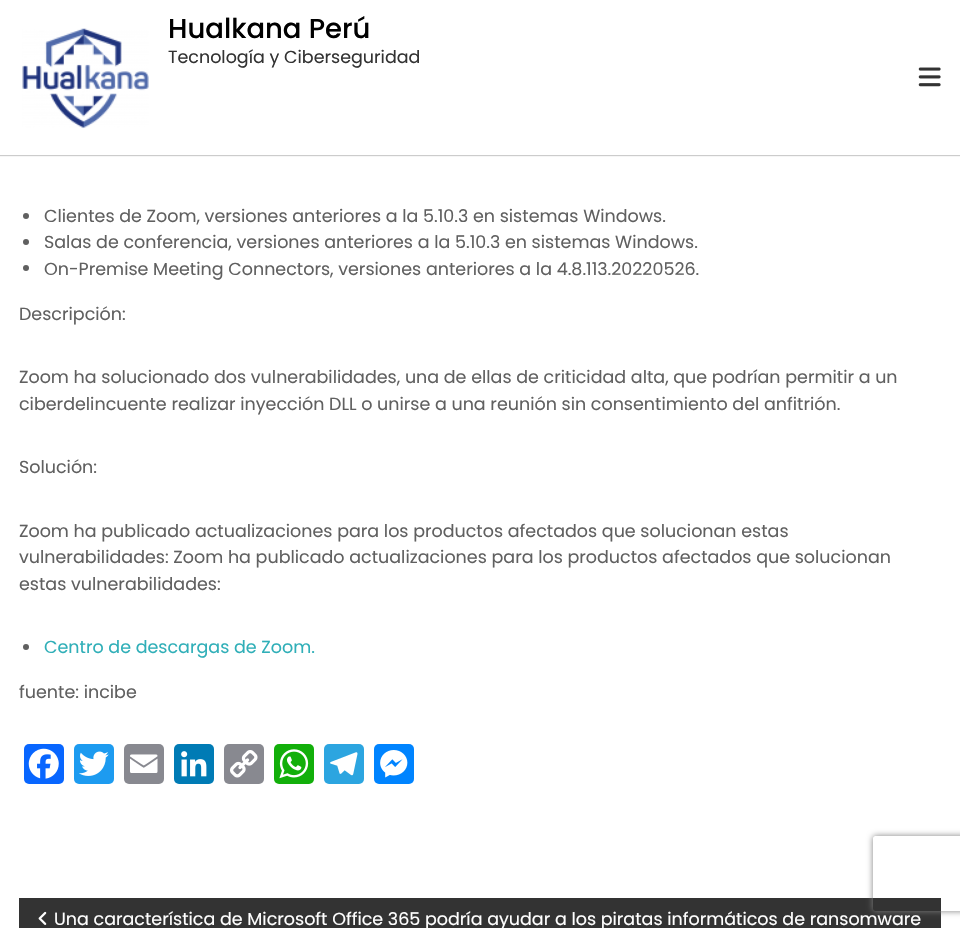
void draw(SkCanvas* canvas) {
	SkPaint fill;
	fill.setAntiAlias(true);
	auto makeFont = [&](const char* family, int weight, float size, bool italic = false) {
		SkFontStyle style(weight, SkFontStyle::kNormal_Width,
			italic ? SkFontStyle::kItalic_Slant : SkFontStyle::kUpright_Slant);
		SkFont result(fontMgr->matchFamilyStyle(family, style), size);
		result.setSubpixel(true);
		return result;
	};
	auto text = [&](const char* s, float x, float y, const SkFont& font) {
		canvas->drawString(s, x, y, font, fill);
	};
	auto box = [&](float l, float t, float r, float b) {
		canvas->drawRect(SkRect::MakeLTRB(l, t, r, b), fill);
	};
	auto roundBox = [&](float l, float t, float r, float b, float radius) {
		canvas->drawRoundRect(SkRect::MakeLTRB(l, t, r, b), radius, radius, fill);
	};
	auto picture = [&](const char* path, float l, float t, float r, float b) {
		auto image = SkImages::DeferredFromEncodedData(SkData::MakeFromFileName(path));
		canvas->drawImageRect(image, SkRect::MakeLTRB(l, t, r, b), SkSamplingOptions());
	};
	canvas->clear(0xFFFFFFFF);
	fill.setColor(0x33000000);
	fill.setMaskFilter(SkMaskFilter::MakeBlur(kNormal_SkBlurStyle, 0.5f));
	canvas->drawRect(SkRect::MakeLTRB(0, 1, 960, 156), fill);
	fill.setMaskFilter(nullptr);
	fill.setColor(0xFFFFFFFF);
	box(0, 0, 960, 155);
	picture("image0.png", 22, 28, 149, 129);
	picture("image1.png", 918, 67, 941, 87);
	fill.setColor(0xFF606060);
	canvas->drawCircle(26, 216, 3, fill);
	canvas->drawCircle(26, 242, 3, fill);
	canvas->drawCircle(26, 268, 3, fill);
	canvas->drawCircle(26, 647, 3, fill);
	fill.setColor(0xFF0866FF);
	roundBox(24, 744, 64, 784, 5);
	picture("image2.png", 28, 748, 59, 779);
	fill.setColor(0xFF1D9BF0);
	roundBox(74, 744, 114, 784, 5);
	picture("image3.png", 79, 751, 109, 776);
	fill.setColor(0xFF888990);
	roundBox(124, 744, 164, 784, 5);
	picture("image4.png", 130, 754, 158, 773);
	fill.setColor(0xFF007BB5);
	roundBox(174, 744, 214, 784, 5);
	picture("image5.png", 181, 751, 207, 777);
	fill.setColor(0xFF888990);
	roundBox(224, 744, 264, 784, 5);
	picture("image6.png", 230, 750, 258, 778);
	fill.setColor(0xFF12AF0A);
	roundBox(274, 744, 314, 784, 5);
	picture("image7.png", 279, 749, 309, 779);
	fill.setColor(0xFF2CA5E0);
	roundBox(324, 744, 364, 784, 5);
	picture("image8.png", 330, 752, 358, 776);
	fill.setColor(0xFF0084FF);
	roundBox(374, 744, 414, 784, 5);
	picture("image9.png", 380, 750, 408, 778);
	fill.setColor(0xFF333333);
	box(19, 898, 941, 928);
	picture("image10.png", 38, 911, 47, 925);
	canvas->save();
	canvas->clipPath(SkPathBuilder(SkPathFillType::kEvenOdd).moveTo(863, 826).lineTo(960, 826).lineTo(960, 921).lineTo(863, 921).close().moveTo(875.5f, 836).lineTo(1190.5f, 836).cubicTo(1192, 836, 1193, 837, 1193, 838.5f).lineTo(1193, 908.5f).cubicTo(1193, 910, 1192, 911, 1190.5f, 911).lineTo(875.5f, 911).cubicTo(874, 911, 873, 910, 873, 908.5f).lineTo(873, 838.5f).cubicTo(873, 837, 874, 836, 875.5f, 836).close().detach(), true);
	fill.setColor(0xFF808080);
	fill.setMaskFilter(SkMaskFilter::MakeBlur(kNormal_SkBlurStyle, 3));
	canvas->drawRoundRect(SkRect::MakeLTRB(873, 836, 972, 911), 2.5f, 2.5f, fill);
	fill.setMaskFilter(nullptr);
	canvas->restore();
	auto font1 = makeFont("Poppins", 500, 27.5f);
	fill.setColor(0xFF000000);
	text("Hualkana Perú", 168, 38, font1);
	auto font2 = makeFont("Poppins", 400, 17.5f);
	fill.setColor(0xFF333333);
	text("Tecnología y Ciberseguridad", 168, 63, font2);
	fill.setColor(0xFF606060);
	text("Clientes de Zoom, versiones anteriores a la 5.10.3 en sistemas Windows.", 44, 222, font2);
	text("Salas de conferencia, versiones anteriores a la 5.10.3 en sistemas Windows.", 44, 248, font2);
	text("On-Premise Meeting Connectors, versiones anteriores a la 4.8.113.20220526.", 44, 275, font2);
	text("Descripción:", 19, 320, font2);
	text("Zoom ha solucionado dos vulnerabilidades, una de ellas de criticidad alta, que podrían permitir a un", 19, 383, font2);
	text("ciberdelincuente realizar inyección DLL o unirse a una reunión sin consentimiento del anfitrión.", 19, 410, font2);
	text("Solución:", 19, 473, font2);
	text("Zoom ha publicado actualizaciones para los productos afectados que solucionan estas", 19, 537, font2);
	text("vulnerabilidades: Zoom ha publicado actualizaciones para los productos afectados que solucionan", 19, 563, font2);
	text("estas vulnerabilidades:", 19, 590, font2);
	fill.setColor(0xFF30AFB8);
	text("Centro de descargas de Zoom.", 44, 653, font2);
	fill.setColor(0xFF606060);
	text("fuente: incibe", 19, 698, font2);
	fill.setColor(0xFFFFFFFF);
	text("Una característica de Microsoft Office 365 podría ayudar a los piratas informáticos de ransomware", 54, 925, font2);
}
